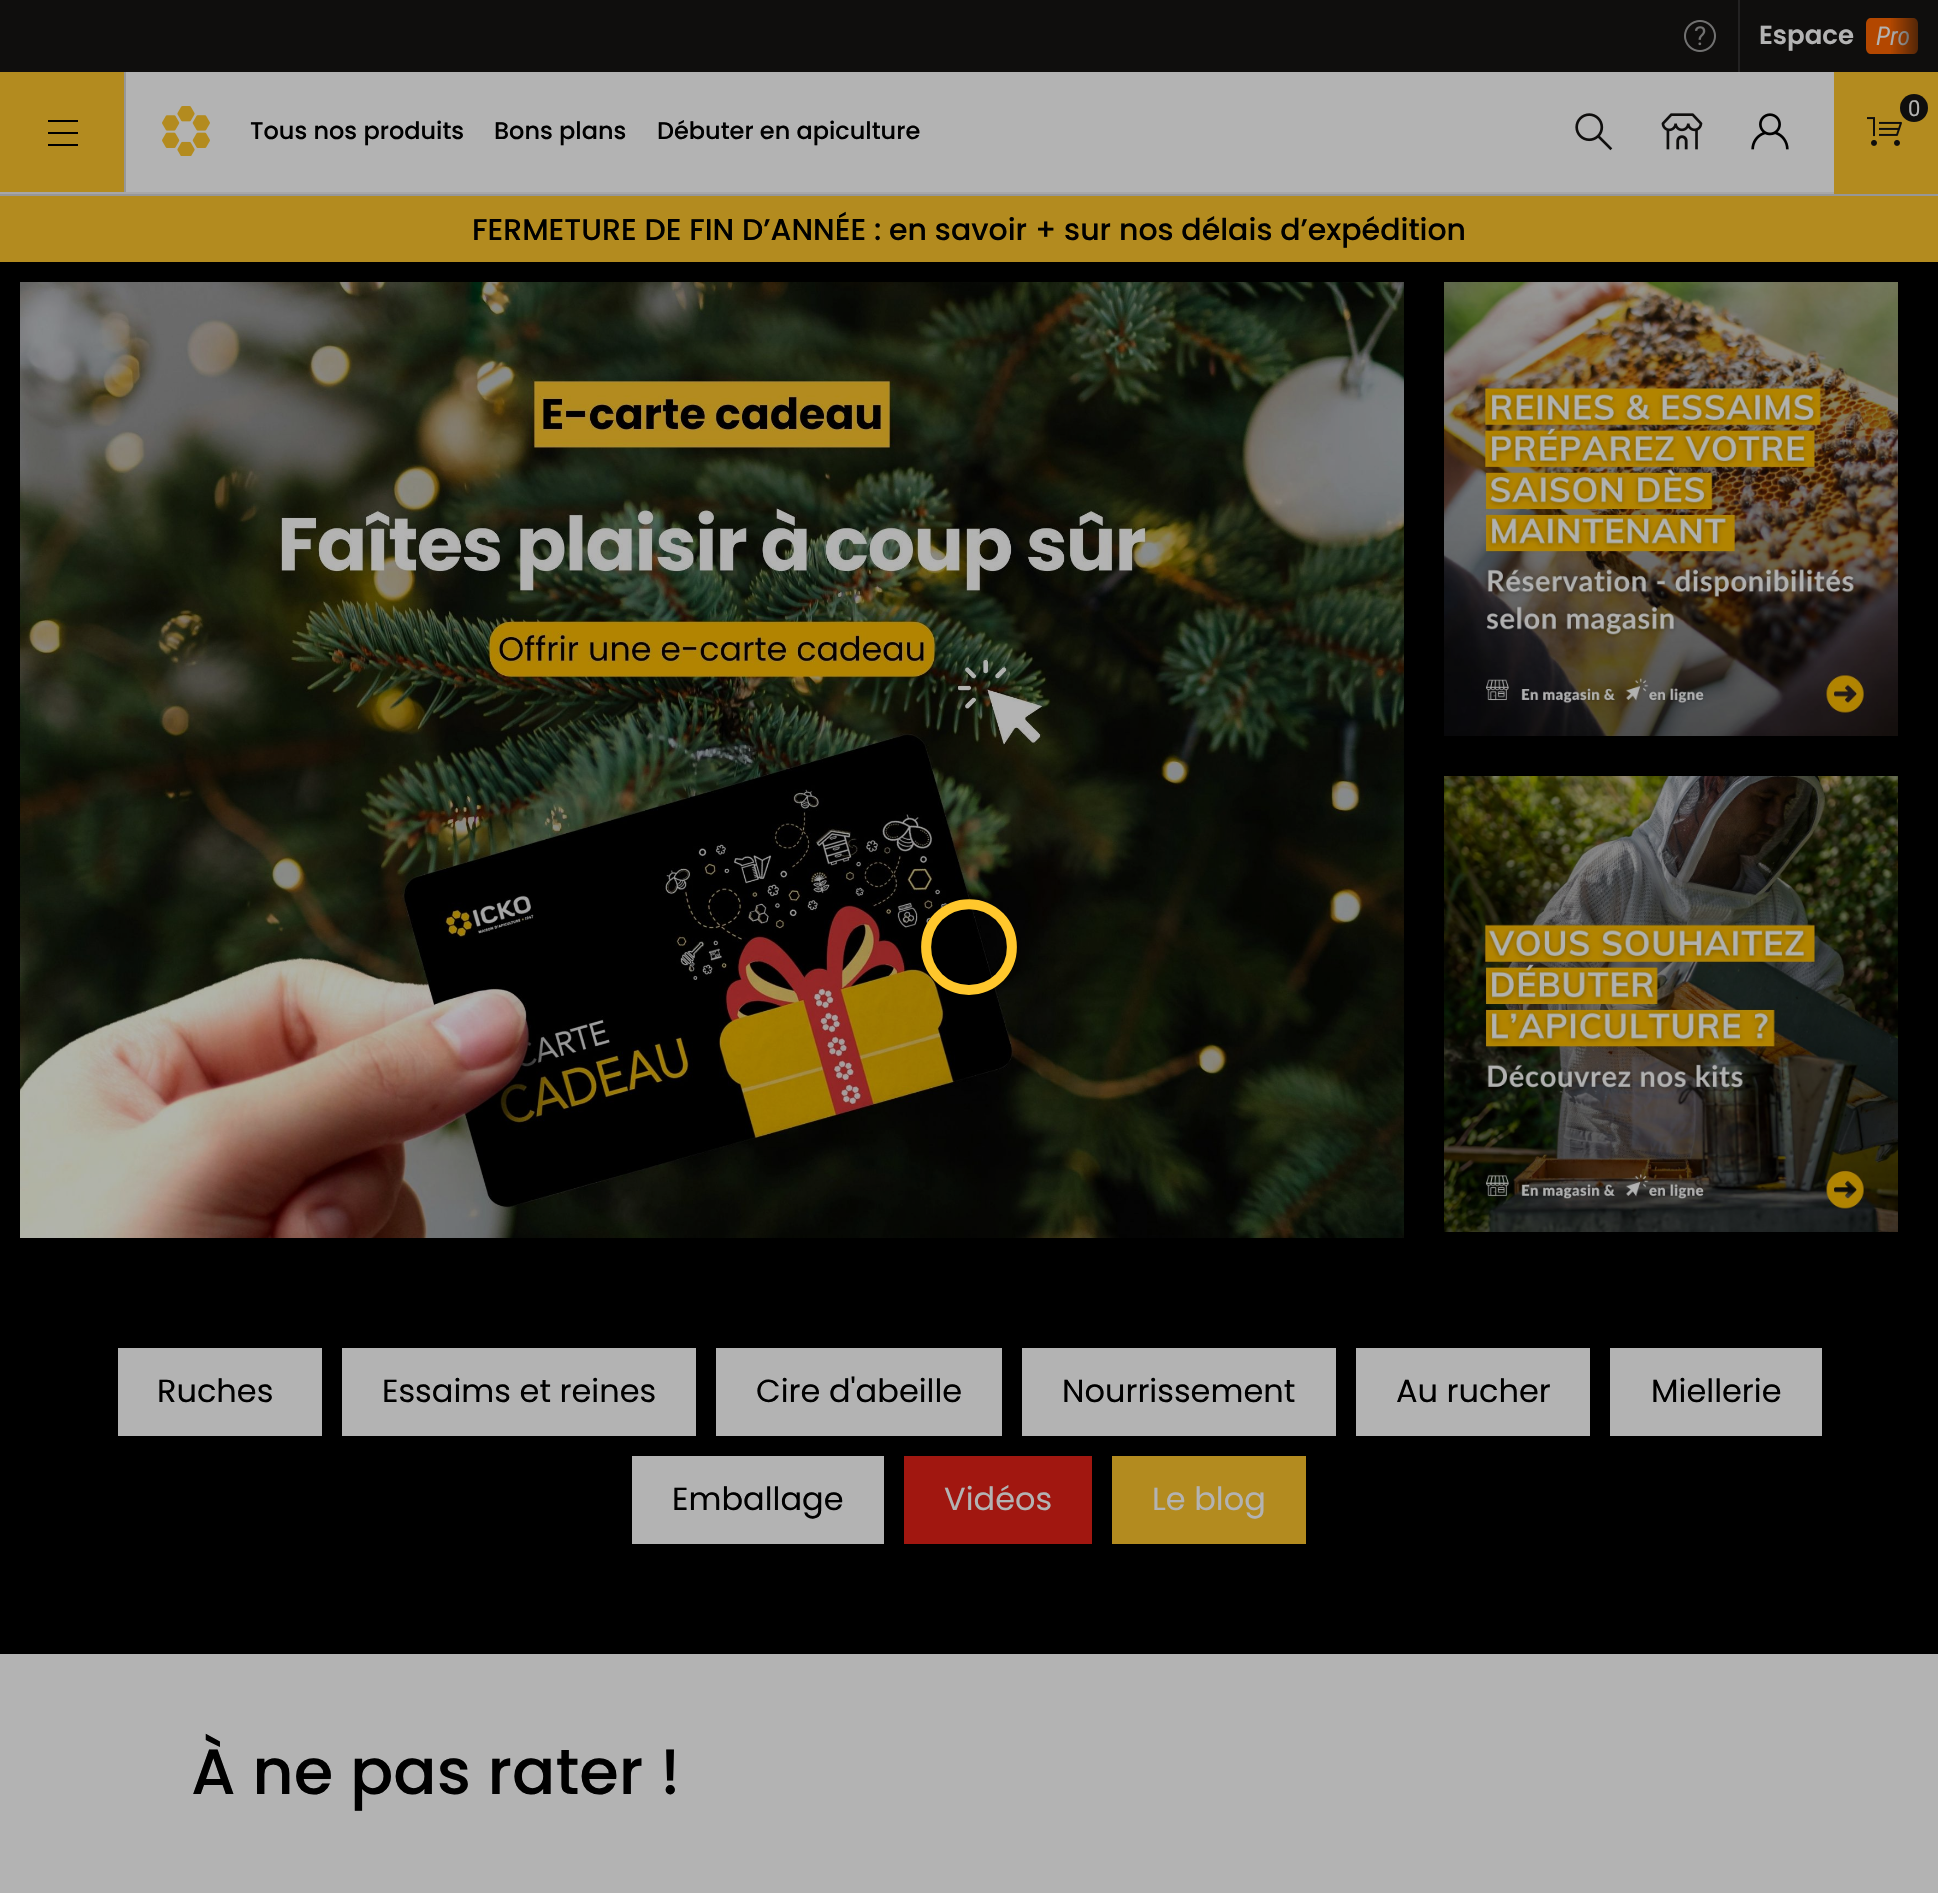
void draw(SkCanvas* canvas) {
	SkPaint fill;
	fill.setAntiAlias(true);
	auto makeFont = [&](const char* family, int weight, float size, bool italic = false) {
		SkFontStyle style(weight, SkFontStyle::kNormal_Width,
			italic ? SkFontStyle::kItalic_Slant : SkFontStyle::kUpright_Slant);
		SkFont result(fontMgr->matchFamilyStyle(family, style), size);
		result.setSubpixel(true);
		return result;
	};
	auto text = [&](const char* s, float x, float y, const SkFont& font) {
		canvas->drawString(s, x, y, font, fill);
	};
	auto box = [&](float l, float t, float r, float b) {
		canvas->drawRect(SkRect::MakeLTRB(l, t, r, b), fill);
	};
	auto picture = [&](const char* path, float l, float t, float r, float b) {
		auto image = SkImages::DeferredFromEncodedData(SkData::MakeFromFileName(path));
		canvas->drawImageRect(image, SkRect::MakeLTRB(l, t, r, b), SkSamplingOptions());
	};
	canvas->clear(0xFFB3B3B3);
	fill.setColor(0xFF979797);
	box(0, 194, 1938, 196);
	fill.setColor(0xFF0F0E0D);
	box(0, 0, 1938, 72);
	picture("image0.png", 1684, 20, 1716, 52);
	fill.setColor(0xFF232222);
	box(1738, 0, 1740, 72);
	picture("image1.png", 1866, 18, 1918, 54);
	{
		const SkColor colors[] = {0x000F0E0D, 0xFF0F0E0D};
		const float stops[] = {0, 1};
		const SkPoint ends[] = {{1890, 36}, {1938, 36}};
		fill.setShader(SkGradientShader::MakeLinear(ends, colors, stops, 2, SkTileMode::kClamp));
		fill.setAlpha(255);
	}
	box(1891, 18, 1918, 54);
	fill.setShader(nullptr);
	fill.setColor(0xFFB38B1F);
	box(1834, 72, 1938, 194);
	picture("image2.png", 1867, 117, 1902, 146);
	fill.setColor(0xFF0F0E0D);
	canvas->drawCircle(1914, 108, 14, fill);
	fill.setColor(0xFFA8A7A7);
	box(0, 192, 1834, 194);
	fill.setColor(0xFFB38B1F);
	box(0, 72, 124, 192);
	fill.setColor(0xFF000000);
	box(48, 120, 78, 122);
	box(48, 132, 78, 134);
	box(48, 144, 78, 146);
	fill.setColor(0xFF979797);
	box(124, 72, 126, 192);
	picture("image3.png", 162, 106, 210, 156);
	picture("image4.png", 1575, 113, 1613, 151);
	picture("image5.png", 1661, 113, 1703, 150);
	picture("image6.png", 1751, 113, 1789, 150);
	fill.setColor(0xFF000000);
	box(0, 262, 1938, 1654);
	picture("image7.png", 20, 282, 1404, 1238);
	fill.setStyle(SkPaint::kStroke_Style);
	fill.setStrokeWidth(10);
	canvas->drawPath(SkPathBuilder().moveTo(999.5f, 916.5f).cubicTo(1016, 933.5f, 1016, 960.5f, 999.5f, 977.5f).cubicTo(982.5f, 994, 955.5f, 994, 938.5f, 977.5f).cubicTo(922, 960.5f, 922, 933.5f, 938.5f, 916.5f).cubicTo(955.5f, 900, 982.5f, 900, 999.5f, 916.5f).close().detach(), fill);
	fill.setColor(0xFFFFC72C);
	canvas->drawPath(SkPathBuilder().moveTo(999.5f, 916.5f).cubicTo(1016, 933.5f, 1016, 960.5f, 999.5f, 977.5f).cubicTo(982.5f, 994, 955.5f, 994, 938.5f, 977.5f).cubicTo(922, 960.5f, 922, 933.5f, 938.5f, 916.5f).cubicTo(955.5f, 900, 982.5f, 900, 999.5f, 916.5f).close().detach(), fill);
	fill.setStyle(SkPaint::kFill_Style);
	fill.setColor(0xFFB38B1F);
	box(0, 196, 1938, 262);
	picture("image8.png", 1444, 282, 1898, 736);
	picture("image9.png", 1444, 776, 1898, 1232);
	fill.setColor(0xFFB3B3B3);
	box(118, 1348, 322, 1436);
	box(342, 1348, 696, 1436);
	box(716, 1348, 1002, 1436);
	box(1022, 1348, 1336, 1436);
	box(1356, 1348, 1590, 1436);
	box(1610, 1348, 1822, 1436);
	box(632, 1456, 884, 1544);
	fill.setColor(0xFFA11710);
	box(904, 1456, 1092, 1544);
	fill.setColor(0xFFB38B1F);
	box(1112, 1456, 1306, 1544);
	auto font1 = makeFont("Poppins", 600, 26);
	fill.setColor(0xFFB3B3B3);
	text("Espace", 1759, 44, font1);
	auto font2 = makeFont("Roboto", 400, 22);
	text("0", 1908, 116, font2);
	auto font3 = makeFont("Poppins", 500, 24);
	fill.setColor(0xFF000000);
	text("Tous nos produits", 250, 139, font3);
	text("Bons plans", 494, 139, font3);
	text("Débuter en apiculture", 657, 139, font3);
	auto font4 = makeFont("Poppins", 500, 30);
	text("FERMETURE DE FIN D’ANNÉE : en savoir + sur nos délais d’expédition", 472, 240, font4);
	auto font5 = makeFont("Poppins", 400, 32);
	text("Ruches", 157, 1402, font5);
	text("Essaims et reines", 382, 1402, font5);
	text("Cire d'abeille", 756, 1402, font5);
	text("Nourrissement", 1062, 1402, font5);
	text("Au rucher", 1396, 1402, font5);
	text("Miellerie", 1651, 1402, font5);
	text("Emballage", 672, 1510, font5);
	fill.setColor(0xFFB3B3B3);
	text("Vidéos", 944, 1510, font5);
	text("Le blog", 1152, 1510, font5);
	auto font6 = makeFont("Poppins", 500, 64);
	fill.setColor(0xFF000000);
	text("À ne pas rater !", 191, 1794, font6);
}
